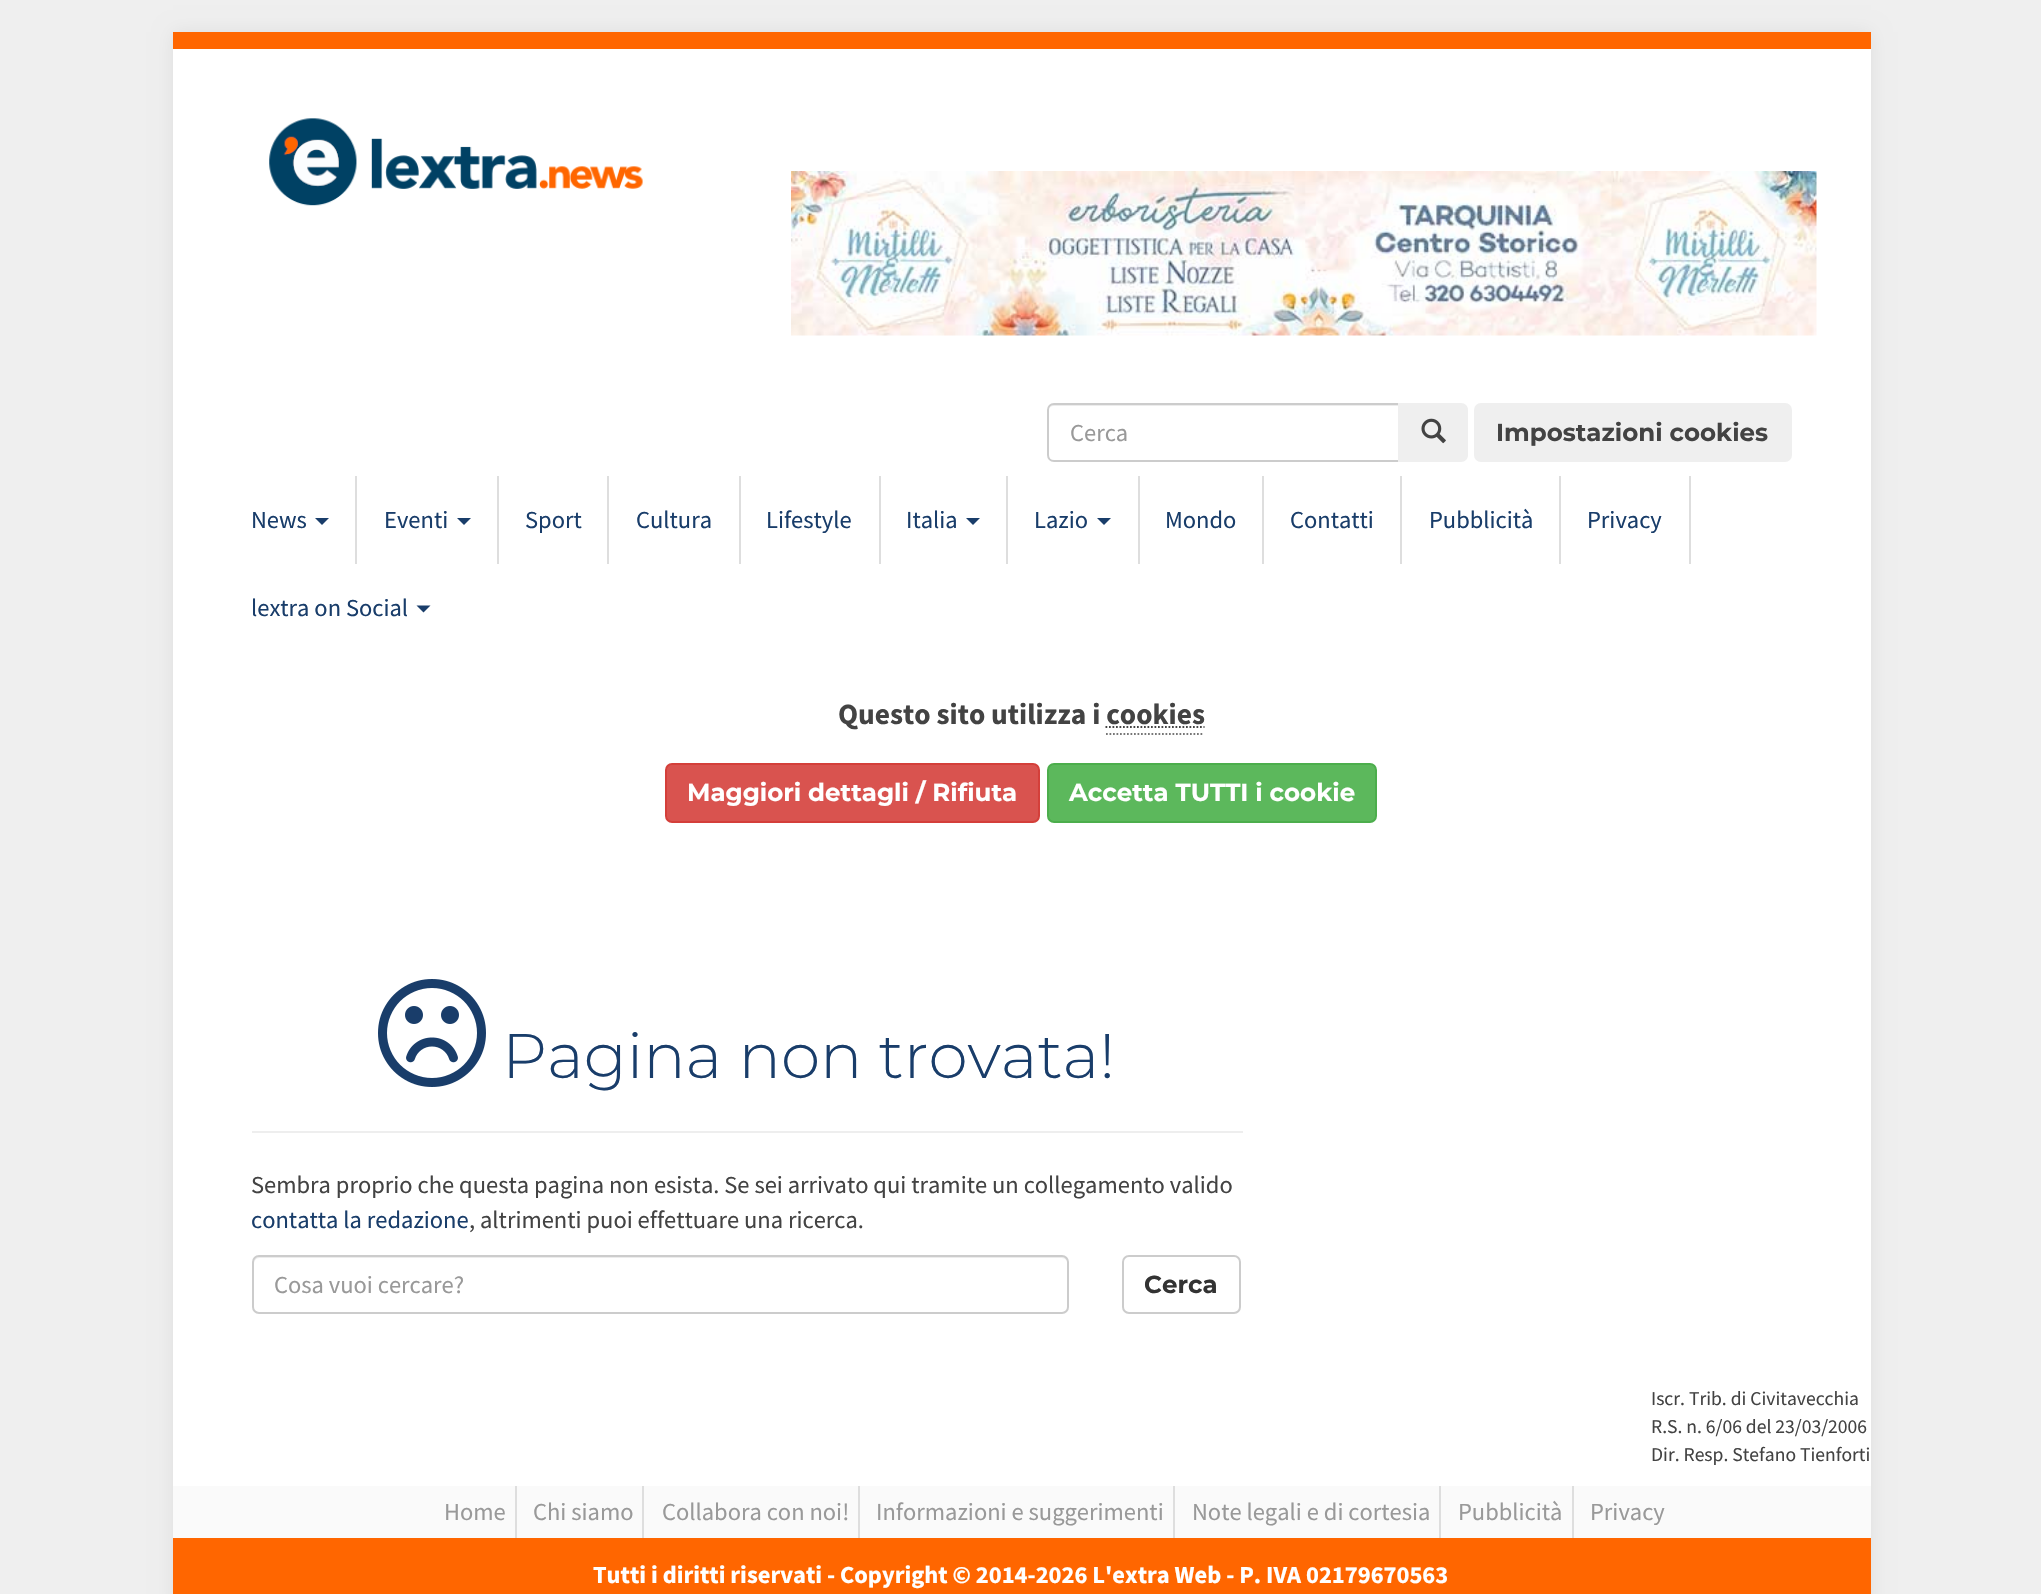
void draw(SkCanvas* canvas) {
	SkPaint fill;
	fill.setAntiAlias(true);
	auto makeFont = [&](const char* family, int weight, float size, bool italic = false) {
		SkFontStyle style(weight, SkFontStyle::kNormal_Width,
			italic ? SkFontStyle::kItalic_Slant : SkFontStyle::kUpright_Slant);
		SkFont result(fontMgr->matchFamilyStyle(family, style), size);
		result.setSubpixel(true);
		return result;
	};
	auto text = [&](const char* s, float x, float y, const SkFont& font) {
		canvas->drawString(s, x, y, font, fill);
	};
	auto box = [&](float l, float t, float r, float b) {
		canvas->drawRect(SkRect::MakeLTRB(l, t, r, b), fill);
	};
	auto roundBox = [&](float l, float t, float r, float b, float radius) {
		canvas->drawRoundRect(SkRect::MakeLTRB(l, t, r, b), radius, radius, fill);
	};
	auto picture = [&](const char* path, float l, float t, float r, float b) {
		auto image = SkImages::DeferredFromEncodedData(SkData::MakeFromFileName(path));
		canvas->drawImageRect(image, SkRect::MakeLTRB(l, t, r, b), SkSamplingOptions());
	};
	canvas->clear(0xFFEFEFEF);
	fill.setColor(0xFFDEDEDE);
	fill.setMaskFilter(SkMaskFilter::MakeBlur(kNormal_SkBlurStyle, 9));
	canvas->drawRect(SkRect::MakeLTRB(173, 32, 1871, 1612), fill);
	fill.setMaskFilter(nullptr);
	fill.setColor(0xFFFFFFFF);
	box(173, 49, 1871, 1486);
	fill.setColor(0xFFFF6600);
	box(173, 32, 1871, 49);
	picture("image0.png", 269, 118, 643, 206);
	picture("image1.png", 791, 171, 1817, 336);
	fill.setColor(0xFFECECEC);
	canvas->drawPath(SkPathBuilder().moveTo(1054, 406).lineTo(1398, 406).lineTo(1398, 404).lineTo(1053, 404).cubicTo(1049, 404, 1048, 408, 1048, 411).cubicTo(1048, 408, 1051, 406, 1054, 406).close().detach(), fill);
	fill.setStyle(SkPaint::kStroke_Style);
	fill.setStrokeWidth(2);
	fill.setColor(0xFFCCCCCC);
	canvas->drawPath(SkPathBuilder().moveTo(1054, 404).lineTo(1399, 404).lineTo(1399, 461).lineTo(1054, 461).cubicTo(1050.5f, 461, 1048, 458.5f, 1048, 455).lineTo(1048, 410).cubicTo(1048, 406.5f, 1050.5f, 404, 1054, 404).close().detach(), fill);
	fill.setStyle(SkPaint::kFill_Style);
	fill.setColor(0xFFEFEFEF);
	canvas->drawPath(SkPathBuilder().moveTo(1398, 403).lineTo(1461, 403).cubicTo(1465, 403, 1468, 406, 1468, 410).lineTo(1468, 455).cubicTo(1468, 459, 1465, 462, 1461, 462).lineTo(1398, 462).close().detach(), fill);
	picture("image2.png", 1421, 418, 1446, 444);
	roundBox(1474, 403, 1792, 462, 7);
	fill.setColor(0xFFDEDEDE);
	box(355, 476, 357, 564);
	fill.setColor(0xFF193D6A);
	canvas->drawPath(SkPathBuilder().moveTo(315, 518).lineTo(329, 518).lineTo(322, 525).close().detach(), fill);
	fill.setColor(0xFFDEDEDE);
	box(497, 476, 499, 564);
	fill.setColor(0xFF193D6A);
	canvas->drawPath(SkPathBuilder().moveTo(457, 518).lineTo(471, 518).lineTo(464, 525).close().detach(), fill);
	fill.setColor(0xFFDEDEDE);
	box(607, 476, 609, 564);
	box(739, 476, 741, 564);
	box(879, 476, 881, 564);
	box(1006, 476, 1008, 564);
	fill.setColor(0xFF193D6A);
	canvas->drawPath(SkPathBuilder().moveTo(966, 518).lineTo(980, 518).lineTo(973, 525).close().detach(), fill);
	fill.setColor(0xFFDEDEDE);
	box(1138, 476, 1140, 564);
	fill.setColor(0xFF193D6A);
	canvas->drawPath(SkPathBuilder().moveTo(1097, 518).lineTo(1111, 518).lineTo(1104, 525).close().detach(), fill);
	fill.setColor(0xFFDEDEDE);
	box(1262, 476, 1264, 564);
	box(1400, 476, 1402, 564);
	box(1559, 476, 1561, 564);
	box(1689, 476, 1691, 564);
	fill.setColor(0xFF193D6A);
	canvas->drawPath(SkPathBuilder().moveTo(416.5f, 605.5f).lineTo(430.5f, 605.5f).lineTo(423.5f, 612.5f).close().detach(), fill);
	fill.setStyle(SkPaint::kStroke_Style);
	fill.setStrokeWidth(1.8f);
	fill.setColor(0xFF434343);
	fill.setPathEffect(SkDashPathEffect::Make({{1.75f, 1.75f}}, 0));
	canvas->drawPath(SkPathBuilder().moveTo(1105.5f, 727).lineTo(1204.5f, 727).detach(), fill);
	fill.setPathEffect(nullptr);
	fill.setColor(0xFF777777);
	fill.setPathEffect(SkDashPathEffect::Make({{1.75f, 1.75f}}, 0));
	canvas->drawPath(SkPathBuilder().moveTo(1106, 734).lineTo(1204, 734).detach(), fill);
	fill.setPathEffect(nullptr);
	fill.setStyle(SkPaint::kFill_Style);
	fill.setColor(0xFFD9534F);
	canvas->drawRoundRect(SkRect::MakeLTRB(666, 764, 1039, 822), 6, 6, fill);
	fill.setStyle(SkPaint::kStroke_Style);
	fill.setStrokeWidth(2);
	fill.setColor(0xFFD43F3A);
	canvas->drawRoundRect(SkRect::MakeLTRB(666, 764, 1039, 822), 6, 6, fill);
	fill.setStyle(SkPaint::kFill_Style);
	fill.setColor(0xFF5CB85C);
	canvas->drawRoundRect(SkRect::MakeLTRB(1048, 764, 1376, 822), 6, 6, fill);
	fill.setStyle(SkPaint::kStroke_Style);
	fill.setColor(0xFF4CAE4C);
	canvas->drawRoundRect(SkRect::MakeLTRB(1048, 764, 1376, 822), 6, 6, fill);
	fill.setStyle(SkPaint::kFill_Style);
	fill.setColor(0xFFEEEEEE);
	box(252, 1131, 1243, 1133);
	picture("image3.png", 378, 979, 486, 1087);
	fill.setColor(0xFFECECEC);
	canvas->drawPath(SkPathBuilder().moveTo(259, 1258).lineTo(1062, 1258).cubicTo(1065, 1258, 1068, 1261, 1068, 1264).lineTo(1068, 1262).cubicTo(1068, 1259, 1066, 1257, 1063, 1257).lineTo(259, 1257).cubicTo(256, 1257, 254, 1259, 254, 1262).lineTo(254, 1264).cubicTo(254, 1261, 256, 1258, 259, 1258).close().detach(), fill);
	fill.setStyle(SkPaint::kStroke_Style);
	fill.setColor(0xFFCCCCCC);
	canvas->drawRoundRect(SkRect::MakeLTRB(253, 1256, 1068, 1313), 6, 6, fill);
	canvas->drawRoundRect(SkRect::MakeLTRB(1123, 1256, 1240, 1313), 6, 6, fill);
	fill.setStyle(SkPaint::kFill_Style);
	fill.setColor(0xFFFAFAFA);
	box(173, 1486, 1871, 1538);
	fill.setColor(0xFFDEDEDE);
	box(515, 1486, 517, 1538);
	box(642, 1486, 644, 1538);
	box(858, 1486, 860, 1538);
	box(1173, 1486, 1175, 1538);
	box(1439, 1486, 1441, 1538);
	box(1572, 1486, 1574, 1538);
	fill.setColor(0xFFFF6600);
	box(173, 1538, 1871, 1594);
	auto font1 = makeFont("Source Sans Pro", 400, 24.5f);
	fill.setColor(0xFF999999);
	text("Cerca", 1070, 441, font1);
	auto font2 = makeFont("Montserrat", 700, 24.5f);
	fill.setColor(0xFF434343);
	text("Impostazioni cookies", 1496, 441, font2);
	fill.setColor(0xFF193D6A);
	text("News", 251, 528, font1);
	text("Eventi", 384, 528, font1);
	text("Sport", 525, 528, font1);
	text("Cultura", 636, 528, font1);
	text("Lifestyle", 766, 528, font1);
	text("Italia", 906, 528, font1);
	text("Lazio", 1034, 528, font1);
	text("Mondo", 1165, 528, font1);
	text("Contatti", 1290, 528, font1);
	text("Pubblicità", 1429, 528, font1);
	text("Privacy", 1587, 528, font1);
	text("lextra on Social", 251, 616, font1);
	auto font3 = makeFont("Source Sans Pro", 700, 29.4f);
	fill.setColor(0xFF434343);
	text("Questo sito utilizza i cookies", 838, 724, font3);
	fill.setColor(0xFFFFFFFF);
	text("Maggiori dettagli / Rifiuta", 687, 801, font2);
	text("Accetta TUTTI i cookie", 1069, 801, font2);
	auto font4 = makeFont("Montserrat", 300, 63);
	fill.setColor(0xFF193D6A);
	text("Pagina non trovata!", 502, 1078, font4);
	fill.setColor(0xFF434343);
	text("Sembra proprio che questa pagina non esista. Se sei arrivato qui tramite un collegamento valido", 251, 1193, font1);
	fill.setColor(0xFF193D6A);
	text("contatta la redazione", 251, 1228, font1);
	fill.setColor(0xFF434343);
	text(", altrimenti puoi effettuare una ricerca.", 469, 1228, font1);
	fill.setColor(0xFF999999);
	text("Cosa vuoi cercare?", 274, 1293, font1);
	fill.setColor(0xFF333333);
	text("Cerca", 1144, 1293, font2);
	auto font5 = makeFont("Source Sans Pro", 400, 19.6f);
	fill.setColor(0xFF434343);
	text("Iscr. Trib. di Civitavecchia", 1651, 1405, font5);
	text("R.S. n. 6/06 del 23/03/2006", 1651, 1433, font5);
	text("Dir. Resp. Stefano Tienforti", 1651, 1461, font5);
	fill.setColor(0xFF999999);
	text("Home", 444, 1520, font1);
	text("Chi siamo", 533, 1520, font1);
	text("Collabora con noi!", 662, 1520, font1);
	text("Informazioni e suggerimenti", 876, 1520, font1);
	text("Note legali e di cortesia", 1192, 1520, font1);
	text("Pubblicità", 1458, 1520, font1);
	text("Privacy", 1590, 1520, font1);
	auto font6 = makeFont("Source Sans Pro", 700, 24.5f);
	fill.setColor(0xFFFFFFFF);
	text("Tutti i diritti riservati - Copyright © 2014-2026 L'extra Web - P. IVA 02179670563", 593, 1583, font6);
}
